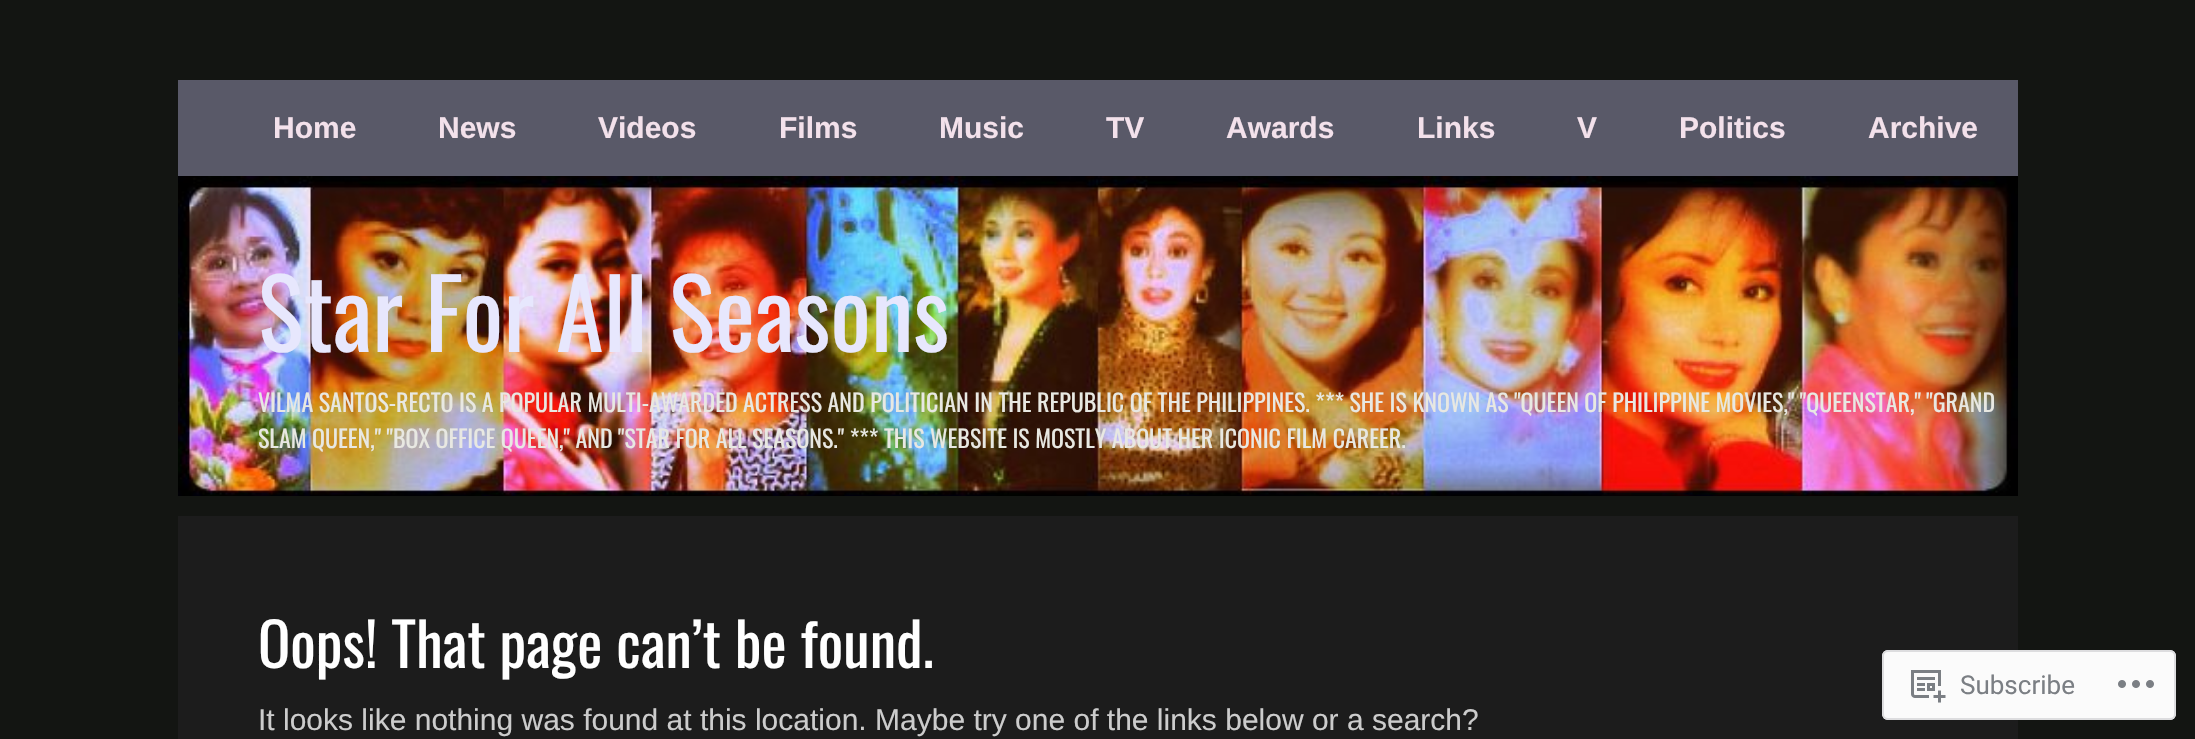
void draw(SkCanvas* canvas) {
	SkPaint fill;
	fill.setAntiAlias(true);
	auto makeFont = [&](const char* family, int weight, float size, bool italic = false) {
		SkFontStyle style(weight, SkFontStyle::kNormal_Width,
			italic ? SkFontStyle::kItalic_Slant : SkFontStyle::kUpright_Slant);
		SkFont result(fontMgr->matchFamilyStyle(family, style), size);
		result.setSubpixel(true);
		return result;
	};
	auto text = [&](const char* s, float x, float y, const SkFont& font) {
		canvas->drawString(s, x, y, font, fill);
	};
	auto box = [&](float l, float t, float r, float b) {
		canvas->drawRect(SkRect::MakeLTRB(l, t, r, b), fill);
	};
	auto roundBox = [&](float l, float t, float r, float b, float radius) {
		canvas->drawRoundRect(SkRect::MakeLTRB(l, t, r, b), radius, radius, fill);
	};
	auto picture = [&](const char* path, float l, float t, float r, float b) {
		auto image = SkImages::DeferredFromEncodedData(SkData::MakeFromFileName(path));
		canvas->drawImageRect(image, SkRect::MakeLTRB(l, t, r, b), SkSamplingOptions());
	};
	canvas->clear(0xFF131512);
	fill.setColor(0xFF595968);
	box(178, 80, 2018, 176);
	picture("image0.png", 178, 176, 2018, 496);
	fill.setColor(0xFF1C1C1C);
	box(178, 516, 2018, 739);
	fill.setColor(0xFAFFFFFF);
	roundBox(1882, 650, 2176, 720, 6);
	fill.setStyle(SkPaint::kStroke_Style);
	fill.setStrokeWidth(2);
	fill.setColor(0xFADCDCDE);
	canvas->drawRoundRect(SkRect::MakeLTRB(1883, 651, 2175, 719), 5, 5, fill);
	picture("image1.png", 1911, 670, 1946, 703);
	picture("image2.png", 2118, 680, 2154, 688);
	auto font1 = makeFont("Arimo", 700, 30);
	fill.setStyle(SkPaint::kFill_Style);
	fill.setColor(0xFFF3E1EB);
	text("Home", 273, 138, font1);
	text("News", 438, 138, font1);
	text("Videos", 598, 138, font1);
	text("Films", 779, 138, font1);
	text("Music", 939, 138, font1);
	text("TV", 1106, 138, font1);
	text("Awards", 1226, 138, font1);
	text("Links", 1417, 138, font1);
	text("V", 1577, 138, font1);
	text("Politics", 1679, 138, font1);
	text("Archive", 1868, 138, font1);
	auto font2 = makeFont("Oswald", 400, 96);
	fill.setColor(0xFFE7E7FD);
	text("Star For All Seasons", 258, 352, font2);
	auto font3 = makeFont("Oswald", 400, 24);
	fill.setColor(0xFFE8E8E2);
	text("VILMA SANTOS-RECTO IS A POPULAR MULTI-AWARDED ACTRESS AND POLITICIAN IN THE REPUBLIC OF THE PHILIPPINES. *** SHE IS KNOWN AS \"QUEEN OF PHILIPPINE MOVIES,\" \"QUEENSTAR,\" \"GRAND", 258, 412, font3);
	text("SLAM QUEEN,\" \"BOX OFFICE QUEEN,\" AND \"STAR FOR ALL SEASONS.\" *** THIS WEBSITE IS MOSTLY ABOUT HER ICONIC FILM CAREER.", 258, 448, font3);
	auto font4 = makeFont("Oswald", 400, 60);
	fill.setColor(0xFFFFFFFF);
	text("Oops! That page can’t be found.", 258, 668, font4);
	auto font5 = makeFont("Arimo", 400, 30);
	fill.setColor(0xFFCCCCCC);
	text("It looks like nothing was found at this location. Maybe try one of the links below or a search?", 258, 730, font5);
	auto font6 = makeFont("Roboto", 400, 26);
	fill.setColor(0xFF7B7F84);
	text("Subscribe", 1960, 694, font6);
}
